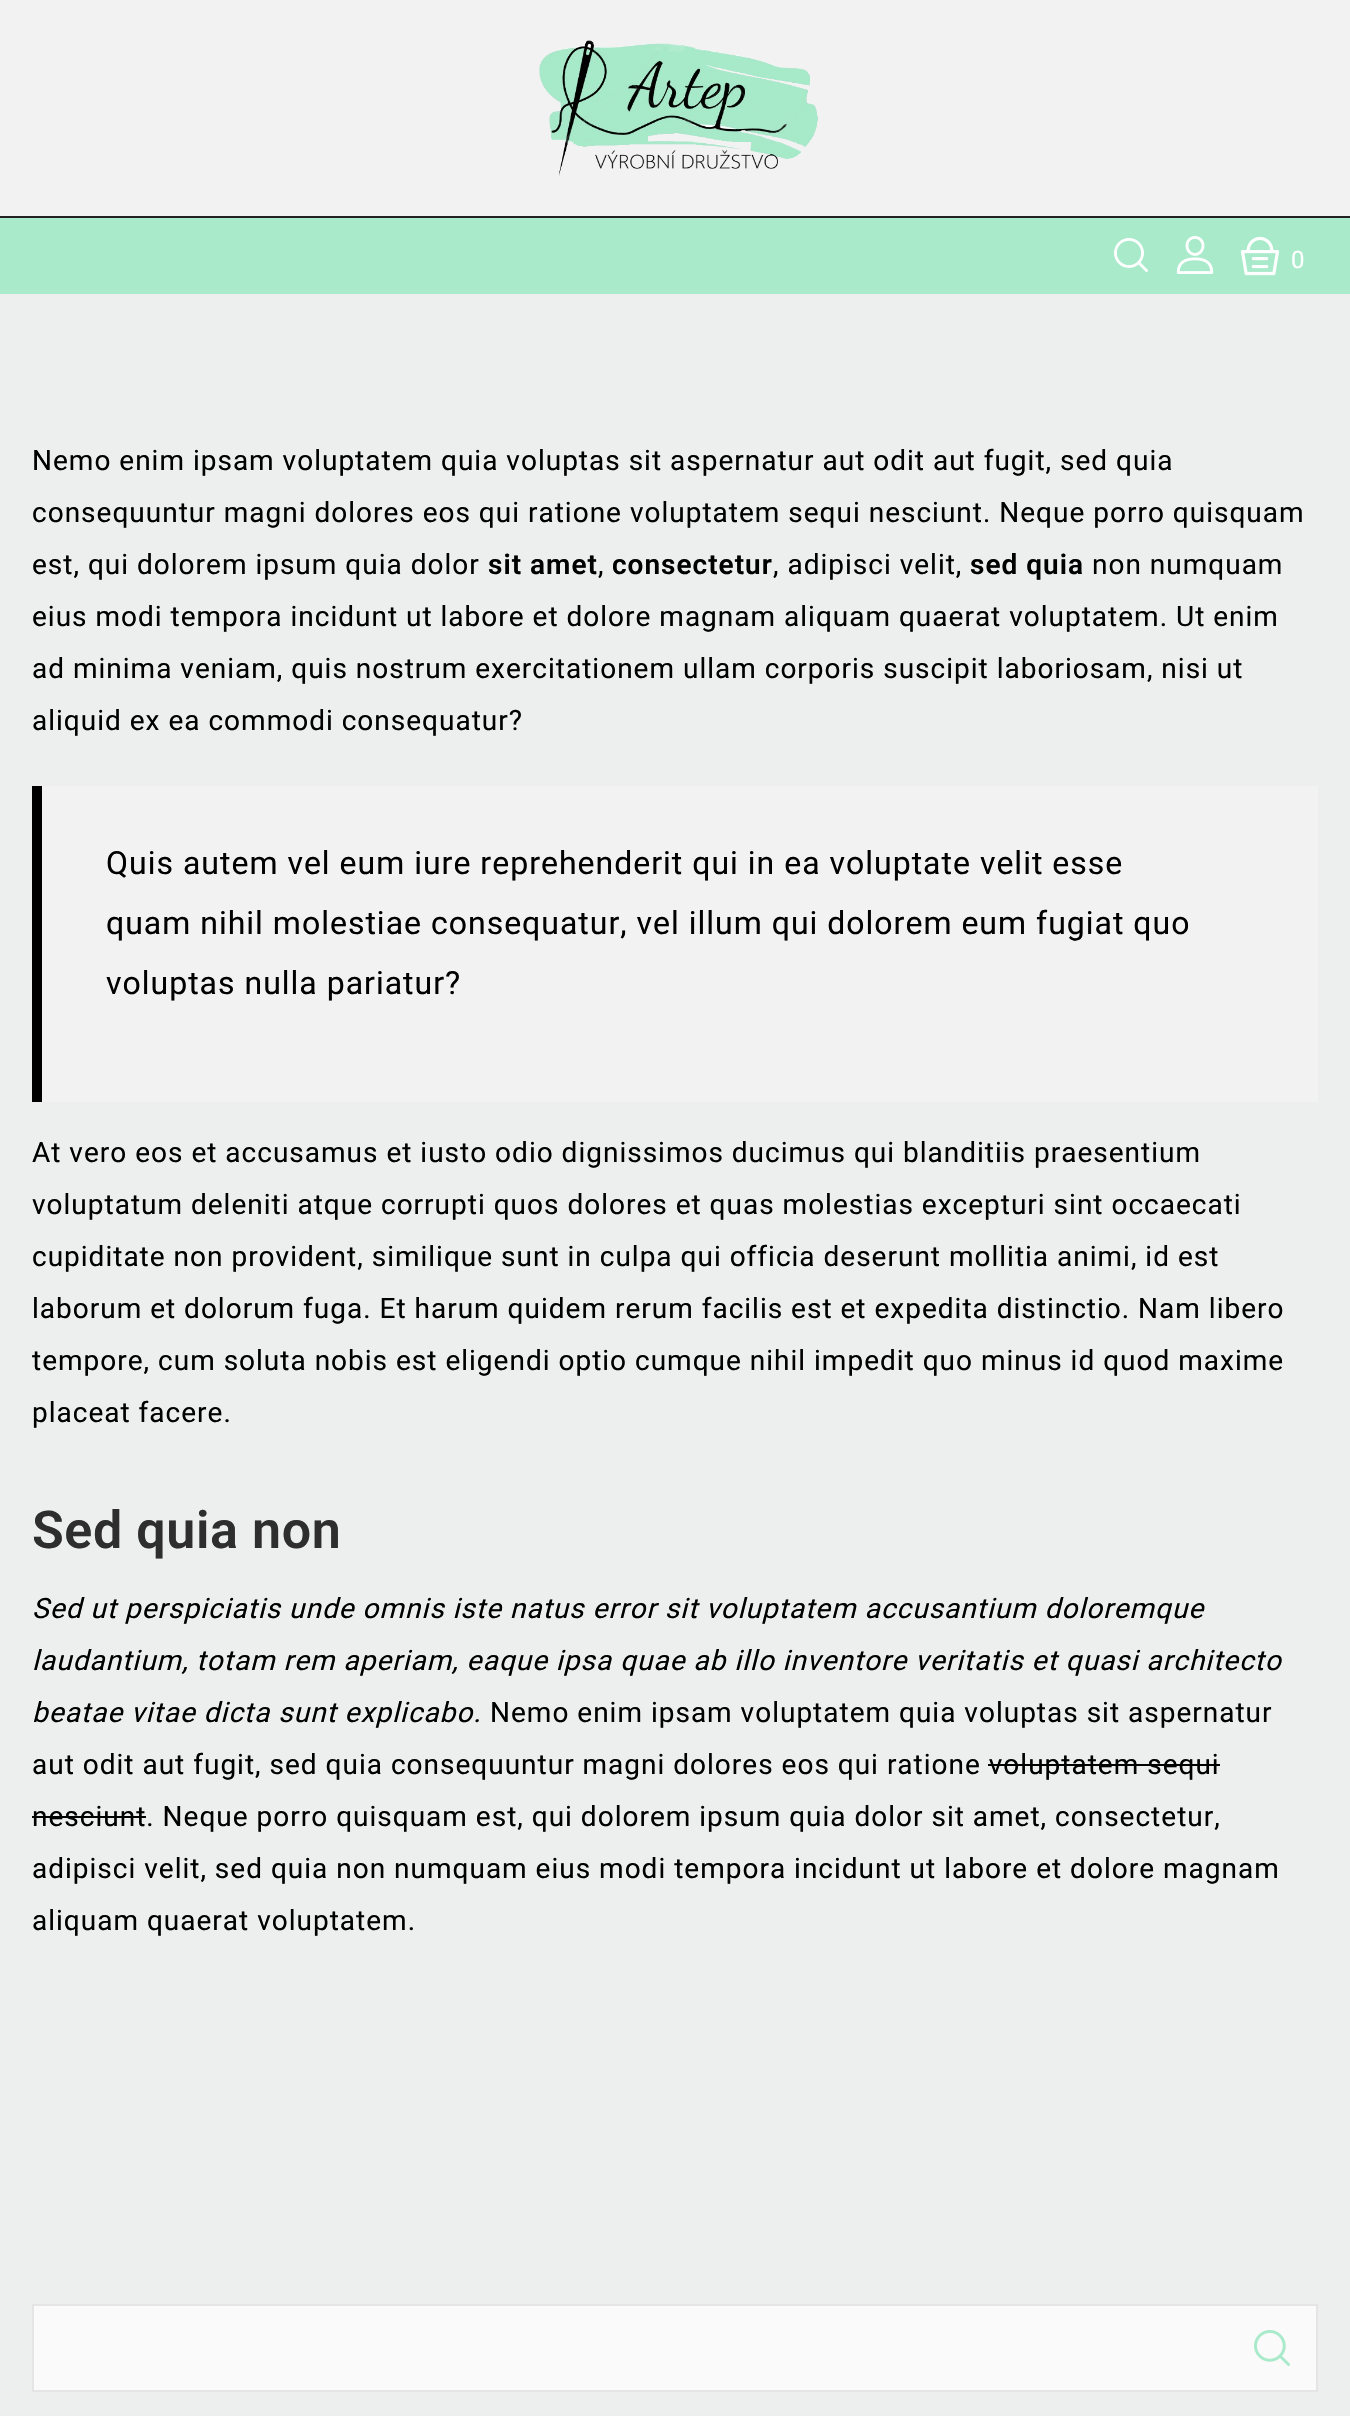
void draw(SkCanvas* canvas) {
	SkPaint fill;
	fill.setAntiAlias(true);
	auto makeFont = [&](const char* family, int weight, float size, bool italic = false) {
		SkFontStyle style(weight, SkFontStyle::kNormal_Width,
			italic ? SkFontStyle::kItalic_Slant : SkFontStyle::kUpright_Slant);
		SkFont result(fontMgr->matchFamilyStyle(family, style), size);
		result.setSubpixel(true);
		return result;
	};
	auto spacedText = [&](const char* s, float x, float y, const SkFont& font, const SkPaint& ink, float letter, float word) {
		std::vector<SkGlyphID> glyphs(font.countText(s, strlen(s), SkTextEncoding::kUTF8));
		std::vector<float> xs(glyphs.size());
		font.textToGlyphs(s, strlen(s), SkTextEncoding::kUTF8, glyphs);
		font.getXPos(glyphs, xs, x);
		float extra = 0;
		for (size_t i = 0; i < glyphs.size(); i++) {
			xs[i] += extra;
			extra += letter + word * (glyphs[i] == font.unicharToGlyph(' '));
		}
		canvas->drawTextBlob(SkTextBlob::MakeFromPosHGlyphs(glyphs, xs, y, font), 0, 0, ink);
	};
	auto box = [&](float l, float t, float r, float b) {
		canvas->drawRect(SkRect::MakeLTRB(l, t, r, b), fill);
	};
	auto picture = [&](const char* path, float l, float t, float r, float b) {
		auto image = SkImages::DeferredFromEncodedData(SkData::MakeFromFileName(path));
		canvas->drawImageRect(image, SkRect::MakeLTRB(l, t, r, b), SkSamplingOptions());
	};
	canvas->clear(0xFFEDEFEE);
	fill.setColor(0xFFF2F2F2);
	box(0, 0, 1350, 216);
	fill.setColor(0xFF212121);
	box(0, 216, 1350, 218);
	picture("image0.png", 539, 40, 818, 176);
	fill.setColor(0xFFA9EACA);
	box(0, 218, 1350, 294);
	picture("image1.png", 1114, 238, 1148, 272);
	picture("image2.png", 1176, 236, 1214, 274);
	picture("image3.png", 1240, 236, 1280, 276);
	fill.setColor(0xFFF2F2F2);
	box(42, 786, 1318, 1102);
	fill.setColor(0xFF000000);
	box(32, 786, 42, 1102);
	box(988, 1764, 1220, 1766);
	box(32, 1816, 146, 1818);
	fill.setColor(0xFFFAFAFA);
	canvas->drawRect(SkRect::MakeLTRB(33, 2305, 1317, 2391), fill);
	fill.setStyle(SkPaint::kStroke_Style);
	fill.setStrokeWidth(2);
	fill.setColor(0xFFE5E5E5);
	canvas->drawRect(SkRect::MakeLTRB(33, 2305, 1317, 2391), fill);
	picture("image4.png", 1254, 2330, 1290, 2366);
	auto font1 = makeFont("Roboto", 400, 24);
	fill.setStyle(SkPaint::kFill_Style);
	fill.setColor(0xFFFFFFFF);
	spacedText("0", 1291, 268, font1, fill, 1, 0);
	auto font2 = makeFont("Roboto", 400, 28);
	fill.setColor(0xFF000000);
	spacedText("Nemo enim ipsam voluptatem quia voluptas sit aspernatur aut odit aut fugit, sed quia", 32, 470, font2, fill, 1, 0);
	spacedText("consequuntur magni dolores eos qui ratione voluptatem sequi nesciunt. Neque porro quisquam", 32, 522, font2, fill, 1, 0);
	spacedText("est, qui dolorem ipsum quia dolor", 32, 574, font2, fill, 1, 0);
	auto font3 = makeFont("Roboto", 600, 28);
	spacedText("sit amet", 488, 574, font3, fill, 1, 0);
	spacedText(",", 598, 574, font2, fill, 1, 0);
	spacedText("consectetur", 612, 574, font3, fill, 1, 0);
	spacedText(", adipisci velit,", 773, 574, font2, fill, 1, 0);
	spacedText("sed quia", 970, 574, font3, fill, 1, 0);
	spacedText("non numquam", 1092, 574, font2, fill, 1, 0);
	spacedText("eius modi tempora incidunt ut labore et dolore magnam aliquam quaerat voluptatem. Ut enim", 32, 626, font2, fill, 1, 0);
	spacedText("ad minima veniam, quis nostrum exercitationem ullam corporis suscipit laboriosam, nisi ut", 32, 678, font2, fill, 1, 0);
	spacedText("aliquid ex ea commodi consequatur?", 32, 730, font2, fill, 1, 0);
	auto font4 = makeFont("Roboto", 400, 32);
	spacedText("Quis autem vel eum iure reprehenderit qui in ea voluptate velit esse", 106, 874, font4, fill, 1, 0);
	spacedText("quam nihil molestiae consequatur, vel illum qui dolorem eum fugiat quo", 106, 934, font4, fill, 1, 0);
	spacedText("voluptas nulla pariatur?", 106, 994, font4, fill, 1, 0);
	spacedText("At vero eos et accusamus et iusto odio dignissimos ducimus qui blanditiis praesentium", 32, 1162, font2, fill, 1, 0);
	spacedText("voluptatum deleniti atque corrupti quos dolores et quas molestias excepturi sint occaecati", 32, 1214, font2, fill, 1, 0);
	spacedText("cupiditate non provident, similique sunt in culpa qui officia deserunt mollitia animi, id est", 32, 1266, font2, fill, 1, 0);
	spacedText("laborum et dolorum fuga. Et harum quidem rerum facilis est et expedita distinctio. Nam libero", 32, 1318, font2, fill, 1, 0);
	spacedText("tempore, cum soluta nobis est eligendi optio cumque nihil impedit quo minus id quod maxime", 32, 1370, font2, fill, 1, 0);
	spacedText("placeat facere.", 32, 1422, font2, fill, 1, 0);
	auto font5 = makeFont("Roboto", 600, 52);
	fill.setColor(0xFF2E2E2E);
	spacedText("Sed quia non", 32, 1548, font5, fill, 0.6f, 0);
	auto font6 = makeFont("Roboto", 400, 28, true);
	fill.setColor(0xFF000000);
	spacedText("Sed ut perspiciatis unde omnis iste natus error sit voluptatem accusantium doloremque", 32, 1618, font6, fill, 1, 0);
	spacedText("laudantium, totam rem aperiam, eaque ipsa quae ab illo inventore veritatis et quasi architecto", 32, 1670, font6, fill, 1, 0);
	spacedText("beatae vitae dicta sunt explicabo.", 32, 1722, font6, fill, 1, 0);
	spacedText("Nemo enim ipsam voluptatem quia voluptas sit aspernatur", 490, 1722, font2, fill, 1, 0);
	spacedText("aut odit aut fugit, sed quia consequuntur magni dolores eos qui ratione voluptatem sequi", 32, 1774, font2, fill, 1, 0);
	spacedText("nesciunt. Neque porro quisquam est, qui dolorem ipsum quia dolor sit amet, consectetur,", 32, 1826, font2, fill, 1, 0);
	spacedText("adipisci velit, sed quia non numquam eius modi tempora incidunt ut labore et dolore magnam", 32, 1878, font2, fill, 1, 0);
	spacedText("aliquam quaerat voluptatem.", 32, 1930, font2, fill, 1, 0);
}
